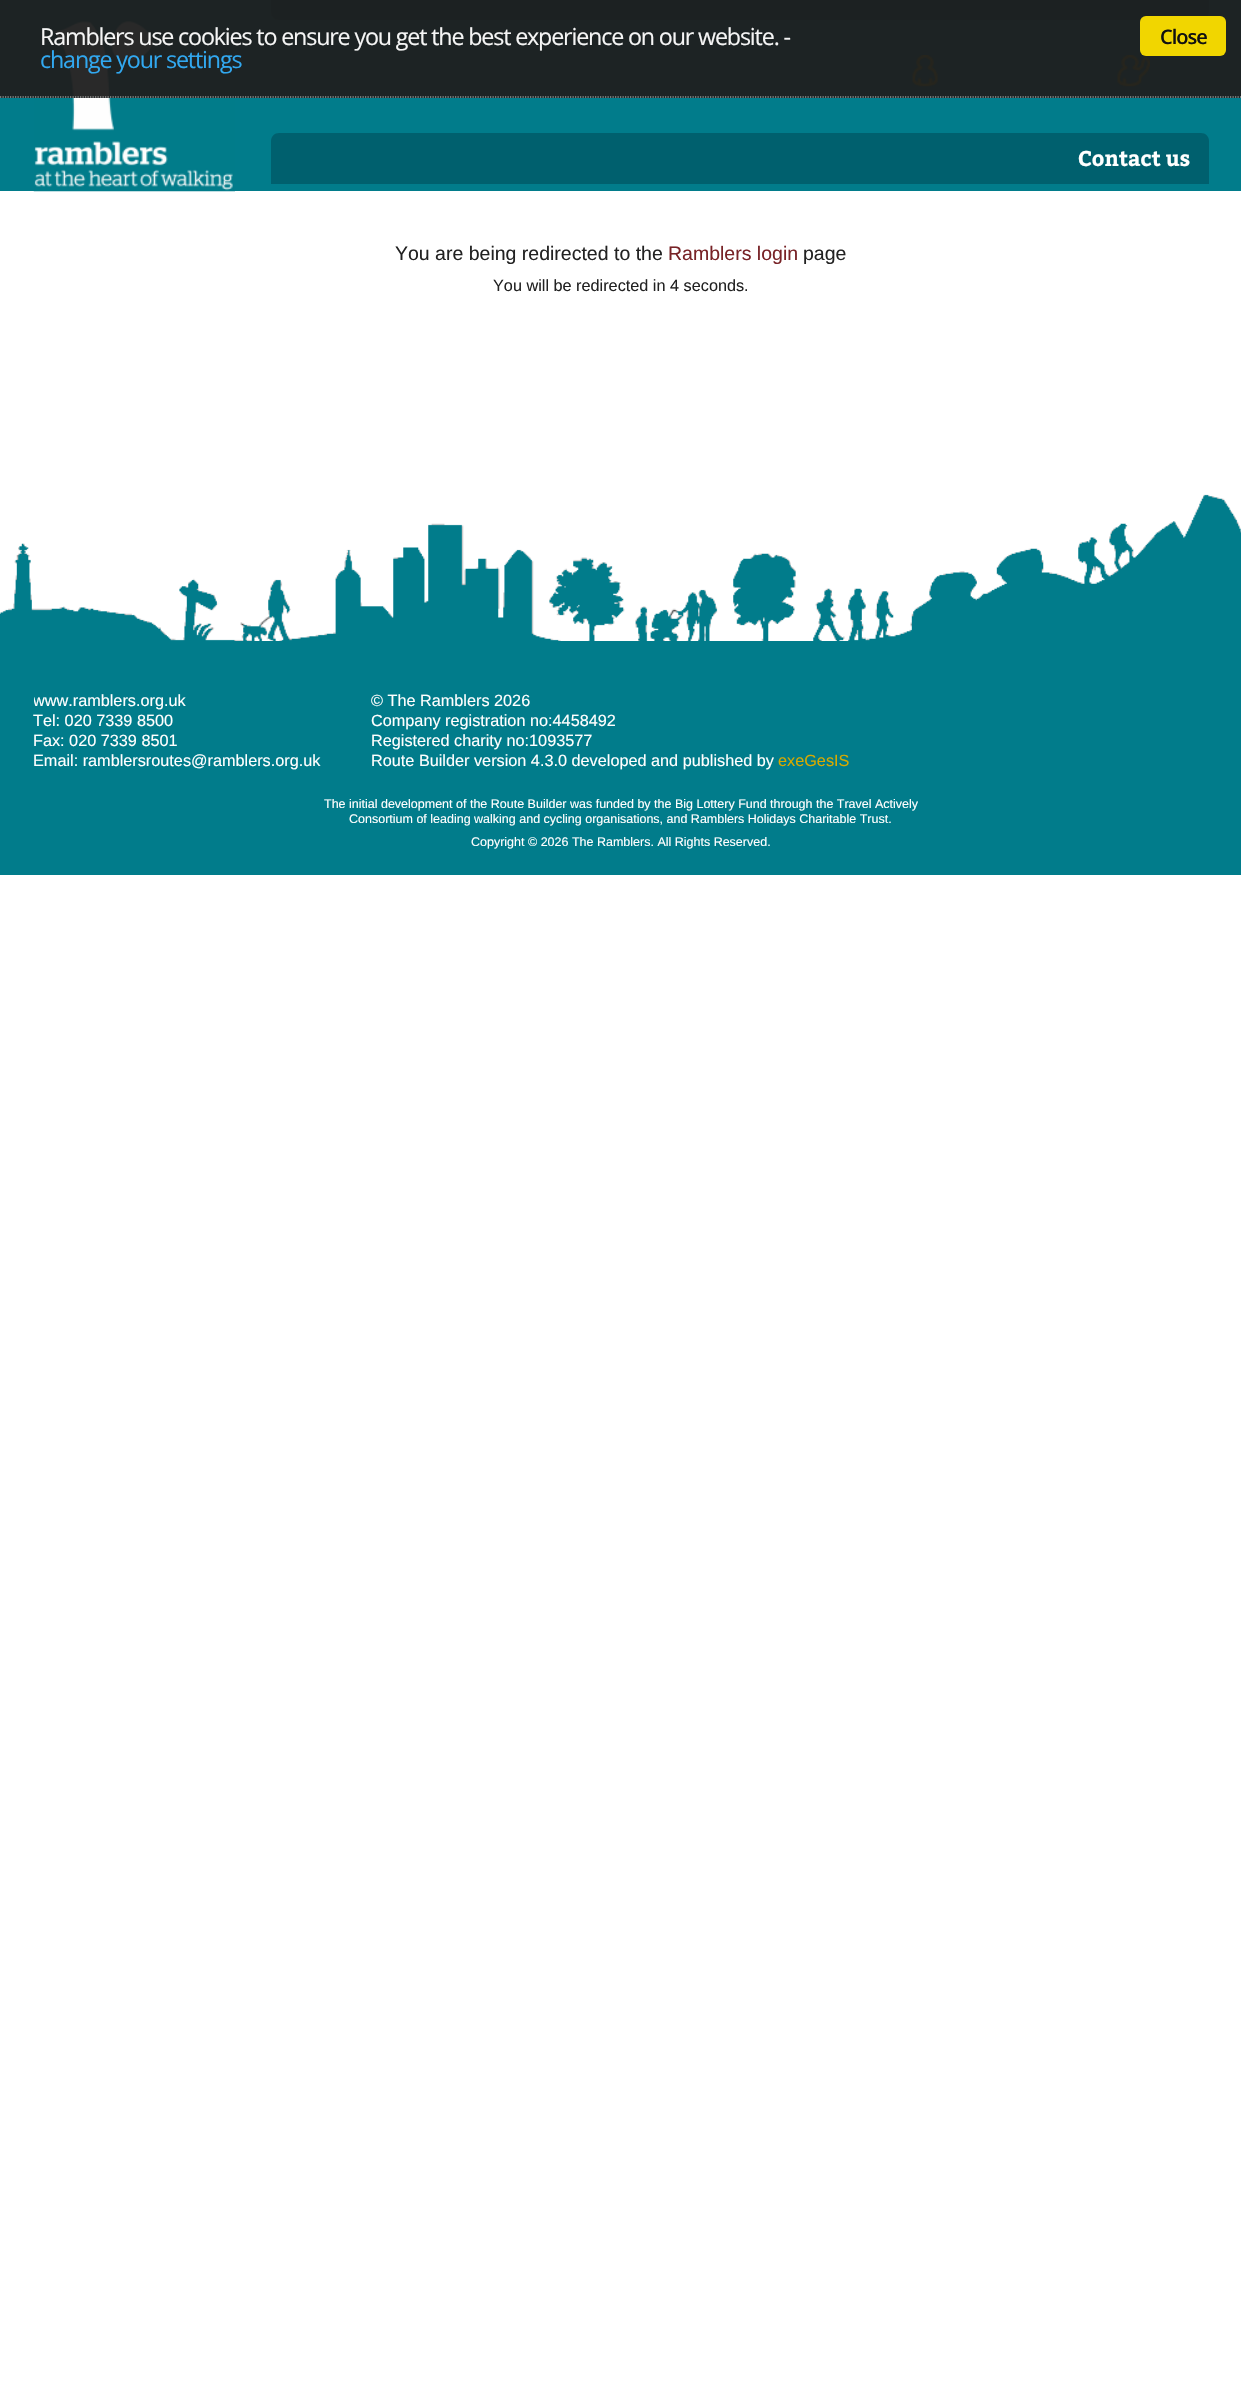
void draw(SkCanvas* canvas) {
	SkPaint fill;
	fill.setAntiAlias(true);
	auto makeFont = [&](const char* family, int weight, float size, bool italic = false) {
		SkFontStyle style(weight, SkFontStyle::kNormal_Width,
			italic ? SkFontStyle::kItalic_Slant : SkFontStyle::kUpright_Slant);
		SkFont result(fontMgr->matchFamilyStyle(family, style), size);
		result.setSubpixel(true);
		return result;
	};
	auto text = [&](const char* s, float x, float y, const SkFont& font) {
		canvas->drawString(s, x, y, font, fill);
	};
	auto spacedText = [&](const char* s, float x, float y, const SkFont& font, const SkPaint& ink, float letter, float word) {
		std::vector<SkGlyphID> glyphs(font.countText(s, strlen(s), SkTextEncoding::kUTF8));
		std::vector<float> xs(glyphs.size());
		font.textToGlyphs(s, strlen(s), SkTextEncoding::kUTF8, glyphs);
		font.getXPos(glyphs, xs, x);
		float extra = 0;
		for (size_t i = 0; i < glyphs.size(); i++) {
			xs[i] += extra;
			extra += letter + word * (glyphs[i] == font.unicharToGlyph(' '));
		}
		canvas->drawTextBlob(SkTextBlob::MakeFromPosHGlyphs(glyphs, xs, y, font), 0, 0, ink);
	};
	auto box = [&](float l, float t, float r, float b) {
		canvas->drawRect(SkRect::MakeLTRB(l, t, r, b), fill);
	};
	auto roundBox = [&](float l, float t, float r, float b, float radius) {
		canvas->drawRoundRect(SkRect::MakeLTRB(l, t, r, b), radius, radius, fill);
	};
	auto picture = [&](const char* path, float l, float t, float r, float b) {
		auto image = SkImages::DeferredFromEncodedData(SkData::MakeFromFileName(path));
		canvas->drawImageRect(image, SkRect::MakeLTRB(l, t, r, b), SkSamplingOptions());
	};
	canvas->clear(0xFFFFFFFF);
	fill.setColor(0xFF017C8B);
	box(0, 0, 1241, 191);
	fill.setColor(0xFF00606E);
	canvas->drawPath(SkPathBuilder().moveTo(271, 0).lineTo(1209, 0).lineTo(1209, 12).cubicTo(1209, 16.5f, 1205.5f, 20, 1201, 20).lineTo(279, 20).cubicTo(274.5f, 20, 271, 16.5f, 271, 12).close().detach(), fill);
	picture("image0.png", 33, 21, 235, 192);
	picture("image1.png", 912, 55, 938, 87);
	picture("image2.png", 1117, 55, 1150, 87);
	fill.setColor(0xF21D1D1D);
	box(0, 0, 1241, 98);
	fill.setStyle(SkPaint::kStroke_Style);
	fill.setStrokeWidth(1.2f);
	fill.setColor(0xFFCCCCCC);
	fill.setPathEffect(SkDashPathEffect::Make({{1.25f, 1.25f}}, 0));
	canvas->drawPath(SkPathBuilder().moveTo(0, 97).lineTo(1241, 97).detach(), fill);
	fill.setPathEffect(nullptr);
	fill.setStyle(SkPaint::kFill_Style);
	fill.setColor(0xFFF1D600);
	roundBox(1140, 16, 1226, 56, 6);
	fill.setColor(0xFF00606E);
	canvas->drawPath(SkPathBuilder().moveTo(279, 133).lineTo(1201, 133).cubicTo(1205.5f, 133, 1209, 136.5f, 1209, 141).lineTo(1209, 184).lineTo(271, 184).lineTo(271, 141).cubicTo(271, 136.5f, 274.5f, 133, 279, 133).close().detach(), fill);
	picture("image3.png", 0, 494, 1241, 641);
	fill.setColor(0xFF017C8B);
	box(0, 641, 1241, 875);
	auto font1 = makeFont("Open Sans", 400, 23.3f);
	fill.setColor(0xFFF5F5F5);
	spacedText("Ramblers use cookies to ensure you get the best experience on our website. -", 40, 45, font1, fill, -1.17f, 0);
	fill.setColor(0xFF31A8F0);
	spacedText("change your settings", 40, 68, font1, fill, -1.17f, 0);
	auto font2 = makeFont("Open Sans", 600, 20);
	fill.setColor(0xFF111111);
	spacedText("Close", 1160, 44, font2, fill, -1, 0);
	auto font3 = makeFont("Bitter", 700, 21.25f);
	fill.setColor(0xFFFFFFFF);
	text("Contact us", 1078, 166, font3);
	auto font4 = makeFont("Liberation Sans", 400, 19.5f);
	fill.setColor(0xFF222222);
	text("You are being redirected to the", 395, 260, font4);
	fill.setColor(0xFF782327);
	text("Ramblers login", 668, 260, font4);
	fill.setColor(0xFF222222);
	text("page", 803, 260, font4);
	auto font5 = makeFont("Liberation Sans", 400, 16.25f);
	text("You will be redirected in 4 seconds.", 493, 291, font5);
	canvas->save();
	canvas->clipRect(SkRect::MakeLTRB(34, 641, 1209, 875));
	fill.setColor(0xFFFFFFFF);
	text("www.ramblers.org.uk", 33, 706, font5);
	canvas->restore();
	text("Tel: 020 7339 8500", 33, 726, font5);
	text("Fax: 020 7339 8501", 33, 746, font5);
	text("Email: ramblersroutes@ramblers.org.uk", 33, 766, font5);
	text("© The Ramblers 2026", 371, 706, font5);
	text("Company registration no:4458492", 371, 726, font5);
	text("Registered charity no:1093577", 371, 746, font5);
	text("Route Builder version 4.3.0 developed and published by", 371, 766, font5);
	fill.setColor(0xFFD7A900);
	text("exeGesIS", 778, 766, font5);
	auto font6 = makeFont("Liberation Sans", 400, 12.5f);
	fill.setColor(0xFFFFFFFF);
	text("The initial development of the Route Builder was funded by the Big Lottery Fund through the Travel Actively", 324, 808, font6);
	text("Consortium of leading walking and cycling organisations, and Ramblers Holidays Charitable Trust.", 349, 823, font6);
	text("Copyright © 2026 The Ramblers. All Rights Reserved.", 471, 846, font6);
}
